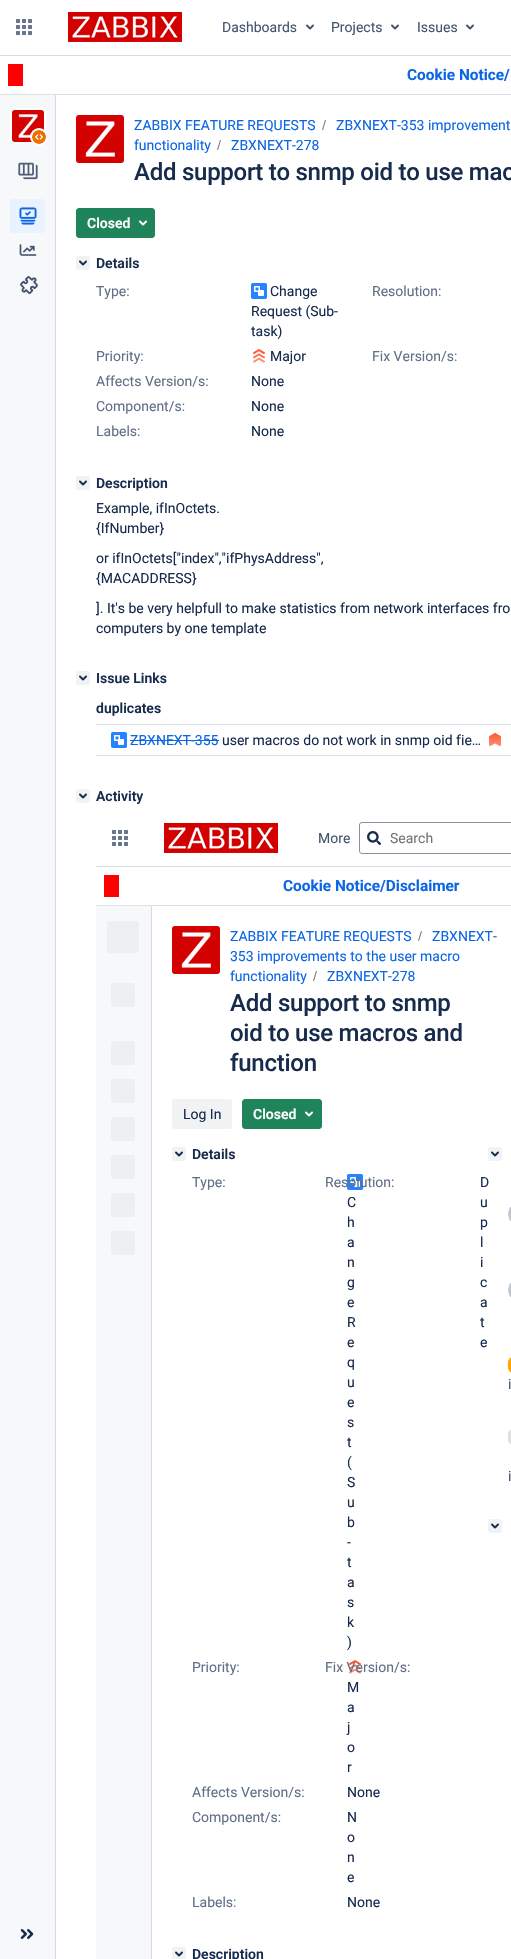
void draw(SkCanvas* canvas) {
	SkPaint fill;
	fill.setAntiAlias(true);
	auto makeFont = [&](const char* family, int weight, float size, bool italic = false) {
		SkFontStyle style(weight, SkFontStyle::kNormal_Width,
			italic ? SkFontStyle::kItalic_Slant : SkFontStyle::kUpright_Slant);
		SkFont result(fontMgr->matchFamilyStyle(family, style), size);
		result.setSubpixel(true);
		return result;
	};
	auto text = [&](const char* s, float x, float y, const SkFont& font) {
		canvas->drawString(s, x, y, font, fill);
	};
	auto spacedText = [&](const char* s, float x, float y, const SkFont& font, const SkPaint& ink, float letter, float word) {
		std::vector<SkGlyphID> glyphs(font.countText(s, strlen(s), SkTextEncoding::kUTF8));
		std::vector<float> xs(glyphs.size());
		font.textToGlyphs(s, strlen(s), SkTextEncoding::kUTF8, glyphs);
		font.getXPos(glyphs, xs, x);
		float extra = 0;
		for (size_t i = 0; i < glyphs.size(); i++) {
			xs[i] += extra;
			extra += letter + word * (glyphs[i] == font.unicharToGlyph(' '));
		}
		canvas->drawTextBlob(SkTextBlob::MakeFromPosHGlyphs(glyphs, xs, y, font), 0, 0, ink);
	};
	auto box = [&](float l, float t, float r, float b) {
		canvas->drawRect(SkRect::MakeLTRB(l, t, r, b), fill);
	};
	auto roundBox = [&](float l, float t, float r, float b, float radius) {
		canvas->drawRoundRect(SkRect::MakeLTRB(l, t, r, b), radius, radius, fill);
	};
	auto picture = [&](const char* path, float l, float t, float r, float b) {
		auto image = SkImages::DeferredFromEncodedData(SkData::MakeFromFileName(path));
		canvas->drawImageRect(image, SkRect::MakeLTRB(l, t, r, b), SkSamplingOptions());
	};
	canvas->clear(0xFFFFFFFF);
	fill.setColor(0xFFD8DCE2);
	box(0, 55, 511, 56);
	picture("image0.png", 16, 19, 32, 35);
	picture("image1.png", 68, 12, 182, 42);
	picture("image2.png", 306, 24, 314, 30);
	picture("image2.png", 391, 24, 399, 30);
	picture("image2.png", 466, 24, 474, 30);
	fill.setColor(0xFFDDE0E5);
	box(0, 94, 511, 95);
	fill.setColor(0xFFFF0000);
	box(8, 64, 23, 86);
	fill.setColor(0xFFF7F8F9);
	box(0, 95, 55, 1959);
	fill.setColor(0xFFD6D9DF);
	box(55, 95, 56, 1959);
	fill.setStyle(SkPaint::kStroke_Style);
	fill.setStrokeWidth(2);
	fill.setColor(0xFFFFFFFF);
	canvas->drawRoundRect(SkRect::MakeLTRB(11, 109, 45, 143), 4, 4, fill);
	picture("image3.png", 12, 110, 44, 142);
	fill.setStyle(SkPaint::kFill_Style);
	canvas->drawCircle(39, 137, 9, fill);
	picture("image4.png", 32, 130, 46, 144);
	picture("image5.png", 18, 162, 38, 180);
	fill.setColor(0xFFE9F2FF);
	roundBox(10, 199, 45, 233, 3);
	picture("image6.png", 19, 207, 37, 225);
	picture("image7.png", 19, 244, 37, 256);
	picture("image8.png", 20, 276, 38, 294);
	picture("image9.png", 20, 1929, 34, 1939);
	picture("image10.png", 76, 115, 124, 163);
	fill.setColor(0xFF707070);
	canvas->drawPath(SkPathBuilder().moveTo(323, 130).lineTo(326, 120).lineTo(325, 120).lineTo(322, 130).close().detach(), fill);
	canvas->drawPath(SkPathBuilder().moveTo(218, 150).lineTo(221, 140).lineTo(220, 140).lineTo(217, 150).close().detach(), fill);
	fill.setColor(0xFF1F845A);
	canvas->drawRoundRect(SkRect::MakeLTRB(76.5f, 208.5f, 154.5f, 237.5f), 2.5f, 2.5f, fill);
	fill.setStyle(SkPaint::kStroke_Style);
	fill.setStrokeWidth(1);
	canvas->drawRoundRect(SkRect::MakeLTRB(76.5f, 208.5f, 154.5f, 237.5f), 2.5f, 2.5f, fill);
	picture("image11.png", 139, 220, 147, 226);
	fill.setStyle(SkPaint::kFill_Style);
	fill.setColor(0xFFF0F2F4);
	roundBox(76, 256, 90, 270, 3);
	picture("image12.png", 79, 260, 87, 266);
	picture("image13.png", 251, 283, 267, 299);
	picture("image14.png", 253, 349, 265, 363);
	roundBox(76, 476, 90, 490, 3);
	picture("image12.png", 79, 480, 87, 486);
	roundBox(76, 671, 90, 685, 3);
	picture("image12.png", 79, 675, 87, 681);
	fill.setColor(0xFFDDE0E5);
	box(96, 724, 511, 725);
	box(96, 755, 511, 756);
	picture("image15.png", 111, 732, 127, 748);
	fill.setColor(0xFF0C66E4);
	box(130, 740, 219, 741);
	picture("image16.png", 489, 733, 501, 747);
	fill.setColor(0xFFF0F2F4);
	roundBox(76, 789, 90, 803, 3);
	picture("image12.png", 79, 793, 87, 799);
	fill.setColor(0xFFD8DCE2);
	box(96, 866, 511, 867);
	picture("image0.png", 112, 830, 128, 846);
	picture("image1.png", 164, 823, 278, 853);
	fill.setStyle(SkPaint::kStroke_Style);
	fill.setColor(0xFF8590A2);
	canvas->drawRoundRect(SkRect::MakeLTRB(359.5f, 822.5f, 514.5f, 853.5f), 2.5f, 2.5f, fill);
	picture("image17.png", 367, 831, 381, 845);
	fill.setStyle(SkPaint::kFill_Style);
	fill.setColor(0xFFDDE0E5);
	box(96, 905, 511, 906);
	fill.setColor(0xFFFF0000);
	box(104, 875, 119, 897);
	fill.setColor(0xFFF7F8F9);
	box(96, 906, 151, 1959);
	fill.setColor(0xFFD6D9DF);
	box(151, 906, 152, 1959);
	fill.setColor(0xFFEDEFF2);
	roundBox(107, 921, 139, 953, 3);
	roundBox(111, 983, 135, 1007, 3);
	roundBox(111, 1041, 135, 1065, 3);
	roundBox(111, 1079, 135, 1103, 3);
	roundBox(111, 1117, 135, 1141, 3);
	roundBox(111, 1155, 135, 1179, 3);
	roundBox(111, 1193, 135, 1217, 3);
	roundBox(111, 1231, 135, 1255, 3);
	picture("image10.png", 172, 926, 220, 974);
	fill.setColor(0xFF707070);
	canvas->drawPath(SkPathBuilder().moveTo(419, 941).lineTo(422, 931).lineTo(421, 931).lineTo(418, 941).close().detach(), fill);
	canvas->drawPath(SkPathBuilder().moveTo(314, 981).lineTo(317, 971).lineTo(316, 971).lineTo(313, 981).close().detach(), fill);
	fill.setColor(0xFFF0F2F4);
	roundBox(172, 1099, 232, 1129, 3);
	fill.setColor(0xFF1F845A);
	canvas->drawRoundRect(SkRect::MakeLTRB(242.5f, 1099.5f, 321.5f, 1128.5f), 2.5f, 2.5f, fill);
	fill.setStyle(SkPaint::kStroke_Style);
	canvas->drawRoundRect(SkRect::MakeLTRB(242.5f, 1099.5f, 321.5f, 1128.5f), 2.5f, 2.5f, fill);
	picture("image11.png", 305, 1111, 313, 1117);
	fill.setStyle(SkPaint::kFill_Style);
	fill.setColor(0xFFF0F2F4);
	roundBox(172, 1147, 186, 1161, 3);
	picture("image12.png", 175, 1151, 183, 1157);
	picture("image15.png", 347, 1174, 363, 1190);
	picture("image14.png", 349, 1660, 361, 1674);
	roundBox(172, 1947, 186, 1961, 3);
	picture("image12.png", 175, 1951, 183, 1957);
	roundBox(488, 1147, 502, 1161, 3);
	picture("image12.png", 491, 1151, 499, 1157);
	picture("image18.png", 508, 1206, 511, 1222);
	picture("image18.png", 508, 1282, 511, 1298);
	fill.setColor(0xFFFFA500);
	roundBox(508, 1357, 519, 1373, 8);
	fill.setColor(0xFFDCDFE4);
	roundBox(508, 1429, 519, 1445, 8);
	fill.setColor(0xFFF0F2F4);
	roundBox(488, 1519, 502, 1533, 3);
	picture("image12.png", 491, 1523, 499, 1529);
	auto font1 = makeFont("Roboto", 400, 14);
	fill.setColor(0xFF44546F);
	text("Dashboards", 222, 32, font1);
	text("Projects", 331, 32, font1);
	text("Issues", 417, 32, font1);
	auto font2 = makeFont("Roboto", 700, 15.4f);
	fill.setColor(0xFF0C66E4);
	text("Cookie Notice/", 407, 80, font2);
	text("ZABBIX FEATURE REQUESTS", 134, 130, font1);
	text("ZBXNEXT-353 improvement", 336, 130, font1);
	text("functionality", 134, 150, font1);
	text("ZBXNEXT-278", 231, 150, font1);
	auto font3 = makeFont("Roboto", 500, 24);
	fill.setColor(0xFF172B4D);
	spacedText("Add support to snmp oid to use mac", 134, 180, font3, fill, -0.25f, 0);
	auto font4 = makeFont("Roboto", 600, 14);
	fill.setColor(0xFFFFFFFF);
	text("Closed", 87, 228, font4);
	fill.setColor(0xFF172B4D);
	text("Details", 96, 268, font4);
	fill.setColor(0xFF626F86);
	text("Type:", 96, 296, font1);
	fill.setColor(0xFF172B4D);
	text("Change", 270, 296, font1);
	text("Request (Sub-", 251, 316, font1);
	text("task)", 251, 336, font1);
	fill.setColor(0xFF626F86);
	text("Resolution:", 372, 296, font1);
	text("Priority:", 96, 361, font1);
	fill.setColor(0xFF172B4D);
	text("Major", 270, 361, font1);
	fill.setColor(0xFF626F86);
	text("Fix Version/s:", 372, 361, font1);
	text("Affects Version/s:", 96, 386, font1);
	fill.setColor(0xFF172B4D);
	text("None", 251, 386, font1);
	fill.setColor(0xFF626F86);
	text("Component/s:", 96, 411, font1);
	fill.setColor(0xFF172B4D);
	text("None", 251, 411, font1);
	fill.setColor(0xFF626F86);
	text("Labels:", 96, 436, font1);
	fill.setColor(0xFF172B4D);
	text("None", 251, 436, font1);
	text("Description", 96, 488, font4);
	text("Example, ifInOctets.", 96, 513, font1);
	text("{IfNumber}", 96, 533, font1);
	text("or ifInOctets[\"index\",\"ifPhysAddress\",", 96, 563, font1);
	text("{MACADDRESS}", 96, 583, font1);
	text("]. It's be very helpfull to make statistics from network interfaces fro", 96, 613, font1);
	text("computers by one template", 96, 633, font1);
	text("Issue Links", 96, 683, font4);
	text("duplicates", 96, 713, font4);
	fill.setColor(0xFF0C66E4);
	text("ZBXNEXT-355", 130, 745, font1);
	fill.setColor(0xFF172B4D);
	text("user macros do not work in snmp oid fie…", 222, 745, font1);
	text("Activity", 96, 801, font4);
	fill.setColor(0xFF44546F);
	text("More", 318, 843, font1);
	fill.setColor(0xFF757575);
	text("Search", 390, 843, font1);
	fill.setColor(0xFF0C66E4);
	text("Cookie Notice/Disclaimer", 283, 891, font2);
	text("ZABBIX FEATURE REQUESTS", 230, 941, font1);
	text("ZBXNEXT-", 432, 941, font1);
	text("353 improvements to the user macro", 230, 961, font1);
	text("functionality", 230, 981, font1);
	text("ZBXNEXT-278", 327, 981, font1);
	fill.setColor(0xFF172B4D);
	spacedText("Add support to snmp", 230, 1011, font3, fill, -0.25f, 0);
	spacedText("oid to use macros and", 230, 1041, font3, fill, -0.25f, 0);
	spacedText("function", 230, 1071, font3, fill, -0.25f, 0);
	text("Log In", 183, 1119, font1);
	fill.setColor(0xFFFFFFFF);
	text("Closed", 253, 1119, font4);
	fill.setColor(0xFF172B4D);
	text("Details", 192, 1159, font4);
	fill.setColor(0xFF626F86);
	text("Type:", 192, 1187, font1);
	fill.setColor(0xFF172B4D);
	text("C", 347, 1207, font1);
	text("h", 347, 1227, font1);
	text("a", 347, 1247, font1);
	text("n", 347, 1267, font1);
	text("g", 347, 1287, font1);
	text("e", 347, 1307, font1);
	text("R", 347, 1327, font1);
	text("e", 347, 1347, font1);
	text("q", 347, 1367, font1);
	text("u", 347, 1387, font1);
	text("e", 347, 1407, font1);
	text("s", 347, 1427, font1);
	text("t", 347, 1447, font1);
	text("(", 347, 1467, font1);
	text("S", 347, 1487, font1);
	text("u", 347, 1507, font1);
	text("b", 347, 1527, font1);
	text("-", 347, 1547, font1);
	text("t", 347, 1567, font1);
	text("a", 347, 1587, font1);
	text("s", 347, 1607, font1);
	text("k", 347, 1627, font1);
	text(")", 347, 1647, font1);
	fill.setColor(0xFF626F86);
	text("Resolution:", 325, 1187, font1);
	fill.setColor(0xFF172B4D);
	text("D", 480, 1187, font1);
	text("u", 480, 1207, font1);
	text("p", 480, 1227, font1);
	text("l", 480, 1247, font1);
	text("i", 480, 1267, font1);
	text("c", 480, 1287, font1);
	text("a", 480, 1307, font1);
	text("t", 480, 1327, font1);
	text("e", 480, 1347, font1);
	fill.setColor(0xFF626F86);
	text("Priority:", 192, 1672, font1);
	fill.setColor(0xFF172B4D);
	text("M", 347, 1692, font1);
	text("a", 347, 1712, font1);
	text("j", 347, 1732, font1);
	text("o", 347, 1752, font1);
	text("r", 347, 1772, font1);
	fill.setColor(0xFF626F86);
	text("Fix Version/s:", 325, 1672, font1);
	text("Affects Version/s:", 192, 1797, font1);
	fill.setColor(0xFF172B4D);
	text("None", 347, 1797, font1);
	fill.setColor(0xFF626F86);
	text("Component/s:", 192, 1822, font1);
	fill.setColor(0xFF172B4D);
	text("N", 347, 1822, font1);
	text("o", 347, 1842, font1);
	text("n", 347, 1862, font1);
	text("e", 347, 1882, font1);
	fill.setColor(0xFF626F86);
	text("Labels:", 192, 1907, font1);
	fill.setColor(0xFF172B4D);
	text("None", 347, 1907, font1);
	text("Description", 192, 1959, font4);
	fill.setColor(0xFF44546F);
	text("i", 508, 1389, font1);
	text("i", 508, 1481, font1);
}
